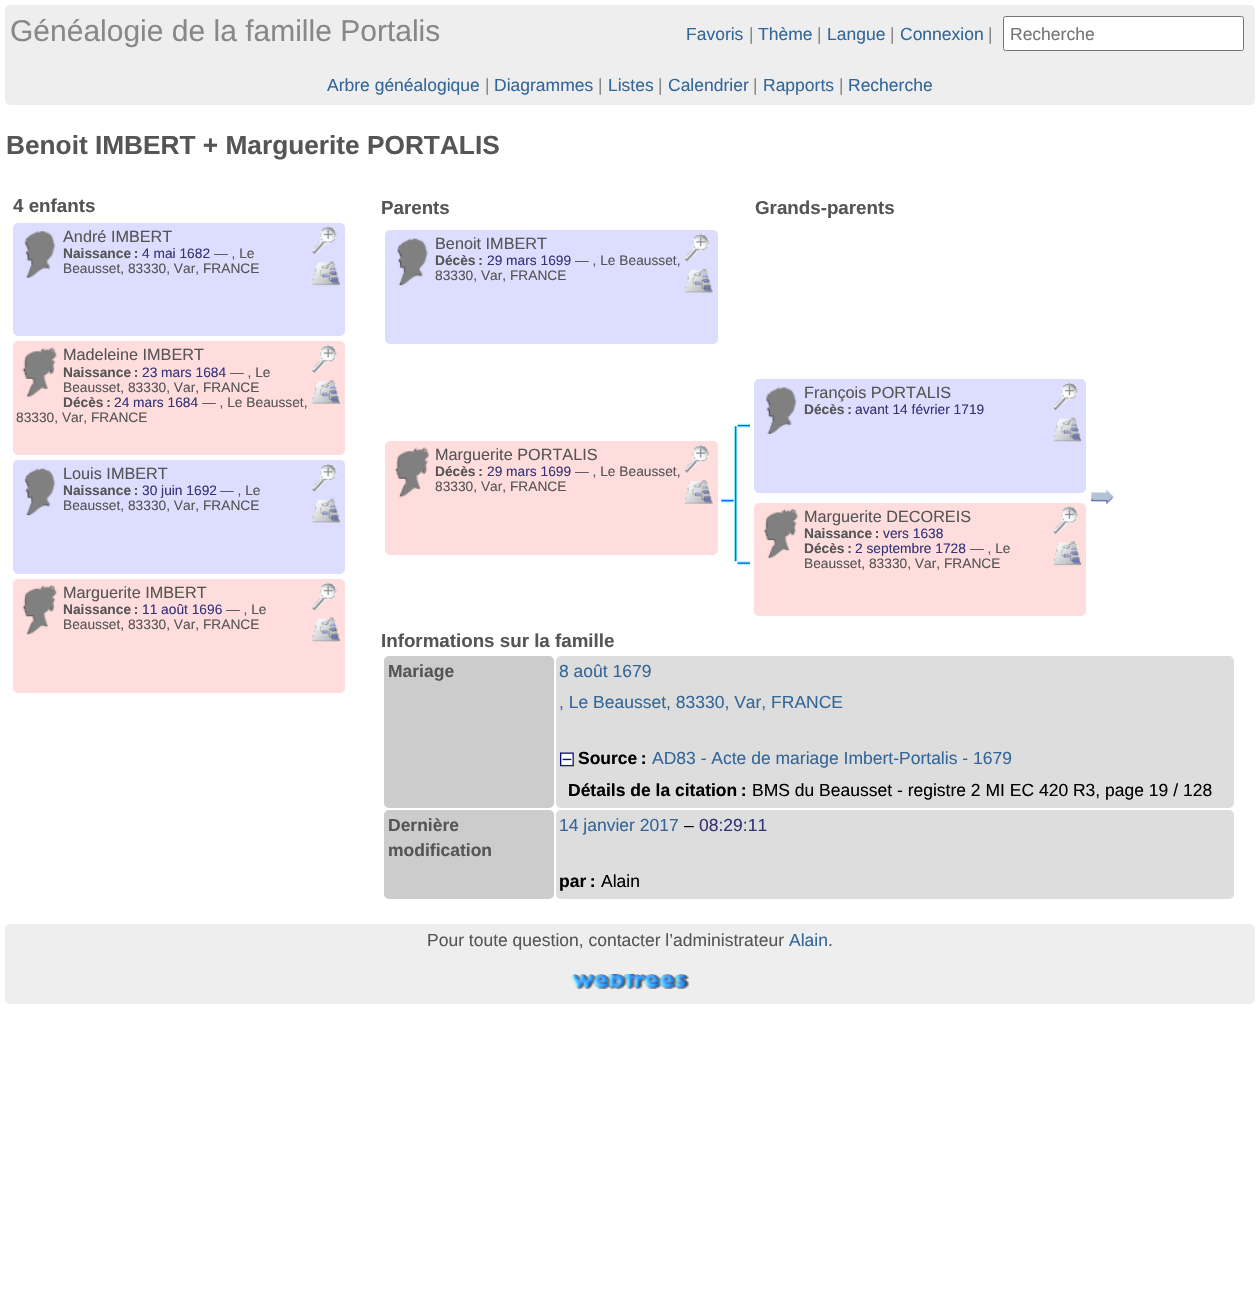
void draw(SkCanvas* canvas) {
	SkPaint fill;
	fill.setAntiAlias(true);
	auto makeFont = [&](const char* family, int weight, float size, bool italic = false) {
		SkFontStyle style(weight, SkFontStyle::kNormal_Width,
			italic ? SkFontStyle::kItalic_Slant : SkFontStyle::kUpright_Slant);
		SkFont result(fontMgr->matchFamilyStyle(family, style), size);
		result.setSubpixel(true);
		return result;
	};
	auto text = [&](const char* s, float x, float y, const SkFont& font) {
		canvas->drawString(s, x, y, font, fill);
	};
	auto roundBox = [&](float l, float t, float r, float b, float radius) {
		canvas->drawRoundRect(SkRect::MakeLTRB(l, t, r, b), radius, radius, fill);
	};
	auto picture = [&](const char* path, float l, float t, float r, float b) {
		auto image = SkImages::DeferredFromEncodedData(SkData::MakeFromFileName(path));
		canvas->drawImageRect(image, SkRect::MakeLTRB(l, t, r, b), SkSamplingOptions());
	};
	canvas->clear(0xFFFFFFFF);
	fill.setColor(0xFFEEEEEE);
	roundBox(5, 5, 1255, 105, 5);
	fill.setColor(0xFFFFFFFF);
	canvas->drawRoundRect(SkRect::MakeLTRB(1003.5f, 16.5f, 1243.5f, 50.5f), 2, 2, fill);
	fill.setStyle(SkPaint::kStroke_Style);
	fill.setStrokeWidth(1);
	fill.setColor(0xFF767676);
	canvas->drawRoundRect(SkRect::MakeLTRB(1003.5f, 16.5f, 1243.5f, 50.5f), 2, 2, fill);
	fill.setStyle(SkPaint::kFill_Style);
	fill.setColor(0xFFDDDDFF);
	roundBox(13, 223, 345, 336, 5);
	picture("image0.png", 24, 231, 56, 278);
	picture("image1.png", 311, 226, 337, 254);
	picture("image2.png", 312, 261, 340, 286);
	fill.setColor(0xFFFFDDDD);
	roundBox(13, 341, 345, 455, 5);
	picture("image3.png", 22, 347, 57, 398);
	picture("image4.png", 311, 345, 337, 373);
	picture("image5.png", 312, 380, 340, 404);
	fill.setColor(0xFFDDDDFF);
	roundBox(13, 460, 345, 574, 5);
	picture("image6.png", 24, 468, 56, 516);
	picture("image7.png", 311, 463, 337, 492);
	picture("image8.png", 312, 498, 340, 523);
	fill.setColor(0xFFFFDDDD);
	roundBox(13, 579, 345, 693, 5);
	picture("image9.png", 22, 585, 57, 635);
	picture("image10.png", 311, 582, 337, 611);
	picture("image11.png", 312, 617, 340, 642);
	fill.setColor(0xFFDDDDFF);
	roundBox(385, 230, 718, 344, 5);
	picture("image12.png", 397, 238, 428, 286);
	picture("image13.png", 683, 233, 709, 262);
	picture("image14.png", 685, 268, 713, 293);
	roundBox(754, 379, 1086, 493, 5);
	picture("image15.png", 765, 387, 797, 434);
	picture("image16.png", 1052, 382, 1078, 411);
	picture("image17.png", 1053, 417, 1082, 442);
	picture("image23.png", 721, 498, 734, 503);
	picture("image22.png", 733, 426, 738, 562);
	picture("image18.png", 737, 423, 750, 428);
	fill.setColor(0xFFFFDDDD);
	roundBox(385, 441, 718, 555, 5);
	picture("image19.png", 395, 447, 429, 498);
	picture("image20.png", 683, 445, 709, 473);
	picture("image21.png", 685, 480, 713, 504);
	picture("image24.png", 1091, 490, 1114, 504);
	picture("image25.png", 737, 561, 750, 565);
	roundBox(754, 503, 1086, 616, 5);
	picture("image26.png", 763, 508, 798, 559);
	picture("image27.png", 1052, 506, 1078, 534);
	picture("image28.png", 1053, 541, 1082, 566);
	fill.setColor(0xFFCCCCCC);
	roundBox(384, 656, 554, 808, 5);
	fill.setColor(0xFFDDDDDD);
	roundBox(556, 656, 1234, 808, 5);
	picture("image29.png", 560, 752, 574, 767);
	fill.setColor(0xFFCCCCCC);
	roundBox(384, 810, 554, 899, 5);
	fill.setColor(0xFFDDDDDD);
	roundBox(556, 810, 1234, 899, 5);
	fill.setColor(0xFFEEEEEE);
	roundBox(5, 924, 1255, 1004, 5);
	picture("image30.png", 571, 974, 689, 989);
	auto font1 = makeFont("Liberation Sans", 400, 30);
	fill.setColor(0xFF888888);
	text("Généalogie de la famille Portalis", 10, 41, font1);
	auto font2 = makeFont("Liberation Sans", 400, 17.5f);
	fill.setColor(0xFF336699);
	text("Favoris", 686, 40, font2);
	fill.setColor(0xFF888888);
	text("|", 749, 40, font2);
	fill.setColor(0xFF336699);
	text("Thème", 758, 40, font2);
	fill.setColor(0xFF888888);
	text("|", 817, 40, font2);
	fill.setColor(0xFF336699);
	text("Langue", 827, 40, font2);
	fill.setColor(0xFF888888);
	text("|", 890, 40, font2);
	fill.setColor(0xFF336699);
	text("Connexion", 900, 40, font2);
	fill.setColor(0xFF888888);
	text("|", 988, 40, font2);
	fill.setColor(0xFF757575);
	text("Recherche", 1010, 40, font2);
	fill.setColor(0xFF336699);
	text("Arbre généalogique", 327, 91, font2);
	fill.setColor(0xFF888888);
	text("|", 485, 91, font2);
	fill.setColor(0xFF336699);
	text("Diagrammes", 494, 91, font2);
	fill.setColor(0xFF888888);
	text("|", 598, 91, font2);
	fill.setColor(0xFF336699);
	text("Listes", 608, 91, font2);
	fill.setColor(0xFF888888);
	text("|", 658, 91, font2);
	fill.setColor(0xFF336699);
	text("Calendrier", 668, 91, font2);
	fill.setColor(0xFF888888);
	text("|", 753, 91, font2);
	fill.setColor(0xFF336699);
	text("Rapports", 763, 91, font2);
	fill.setColor(0xFF888888);
	text("|", 839, 91, font2);
	fill.setColor(0xFF336699);
	text("Recherche", 848, 91, font2);
	auto font3 = makeFont("Liberation Sans", 700, 26.25f);
	fill.setColor(0xFF555555);
	text("Benoit IMBERT + Marguerite PORTALIS", 6, 154, font3);
	auto font4 = makeFont("Liberation Sans", 700, 18.75f);
	text("4 enfants", 13, 212, font4);
	auto font5 = makeFont("Liberation Sans", 400, 16.25f);
	text("André IMBERT", 63, 242, font5);
	auto font6 = makeFont("Liberation Sans", 700, 13.75f);
	text("Naissance :", 63, 258, font6);
	auto font7 = makeFont("Liberation Sans", 400, 13.75f);
	fill.setColor(0xFF333377);
	text("4 mai 1682", 142, 258, font7);
	fill.setColor(0xFF555555);
	text("— , Le", 214, 258, font7);
	text("Beausset, 83330, Var, FRANCE", 63, 273, font7);
	text("Madeleine IMBERT", 63, 360, font5);
	text("Naissance :", 63, 377, font6);
	fill.setColor(0xFF333377);
	text("23 mars 1684", 142, 377, font7);
	fill.setColor(0xFF555555);
	text("— , Le", 230, 377, font7);
	text("Beausset, 83330, Var, FRANCE", 63, 392, font7);
	text("Décès :", 63, 407, font6);
	fill.setColor(0xFF333377);
	text("24 mars 1684", 114, 407, font7);
	fill.setColor(0xFF555555);
	text("— , Le Beausset,", 202, 407, font7);
	text("83330, Var, FRANCE", 16, 422, font7);
	text("Louis IMBERT", 63, 479, font5);
	text("Naissance :", 63, 495, font6);
	fill.setColor(0xFF333377);
	text("30 juin 1692", 142, 495, font7);
	fill.setColor(0xFF555555);
	text("— , Le", 220, 495, font7);
	text("Beausset, 83330, Var, FRANCE", 63, 510, font7);
	text("Marguerite IMBERT", 63, 598, font5);
	text("Naissance :", 63, 614, font6);
	fill.setColor(0xFF333377);
	text("11 août 1696", 142, 614, font7);
	fill.setColor(0xFF555555);
	text("— , Le", 226, 614, font7);
	text("Beausset, 83330, Var, FRANCE", 63, 629, font7);
	text("Parents", 381, 214, font4);
	text("Grands-parents", 755, 214, font4);
	text("Benoit IMBERT", 435, 249, font5);
	text("Décès :", 435, 265, font6);
	fill.setColor(0xFF333377);
	text("29 mars 1699", 487, 265, font7);
	fill.setColor(0xFF555555);
	text("— , Le Beausset,", 575, 265, font7);
	text("83330, Var, FRANCE", 435, 280, font7);
	text("François PORTALIS", 804, 398, font5);
	text("Décès :", 804, 414, font6);
	fill.setColor(0xFF333377);
	text("avant 14 février 1719", 855, 414, font7);
	fill.setColor(0xFF555555);
	text("Marguerite PORTALIS", 435, 460, font5);
	text("Décès :", 435, 476, font6);
	fill.setColor(0xFF333377);
	text("29 mars 1699", 487, 476, font7);
	fill.setColor(0xFF555555);
	text("— , Le Beausset,", 575, 476, font7);
	text("83330, Var, FRANCE", 435, 491, font7);
	text("Marguerite DECOREIS", 804, 522, font5);
	text("Naissance :", 804, 538, font6);
	fill.setColor(0xFF333377);
	text("vers 1638", 883, 538, font7);
	fill.setColor(0xFF555555);
	text("Décès :", 804, 553, font6);
	fill.setColor(0xFF333377);
	text("2 septembre 1728", 855, 553, font7);
	fill.setColor(0xFF555555);
	text("— , Le", 970, 553, font7);
	text("Beausset, 83330, Var, FRANCE", 804, 568, font7);
	text("Informations sur la famille", 381, 647, font4);
	auto font8 = makeFont("Liberation Sans", 700, 17.5f);
	text("Mariage", 388, 677, font8);
	fill.setColor(0xFF336699);
	text("8 août 1679", 559, 677, font2);
	text(", Le Beausset, 83330, Var, FRANCE", 559, 708, font2);
	fill.setColor(0xFF000000);
	text("Source :", 578, 764, font8);
	fill.setColor(0xFF336699);
	text("AD83 - Acte de mariage Imbert-Portalis - 1679", 652, 764, font2);
	fill.setColor(0xFF000000);
	text("Détails de la citation :", 568, 796, font8);
	text("BMS du Beausset - registre 2 MI EC 420 R3, page 19 / 128", 752, 796, font2);
	fill.setColor(0xFF555555);
	text("Dernière", 388, 831, font8);
	text("modification", 388, 856, font8);
	fill.setColor(0xFF336699);
	text("14 janvier 2017", 559, 831, font2);
	fill.setColor(0xFF000000);
	text("–", 684, 831, font2);
	fill.setColor(0xFF333377);
	text("08:29:11", 699, 831, font2);
	fill.setColor(0xFF000000);
	text("par :", 559, 887, font8);
	text("Alain", 601, 887, font2);
	fill.setColor(0xFF555555);
	text("Pour toute question, contacter l’administrateur", 427, 946, font2);
	fill.setColor(0xFF336699);
	text("Alain", 789, 946, font2);
	fill.setColor(0xFF555555);
	text(".", 828, 946, font2);
}
